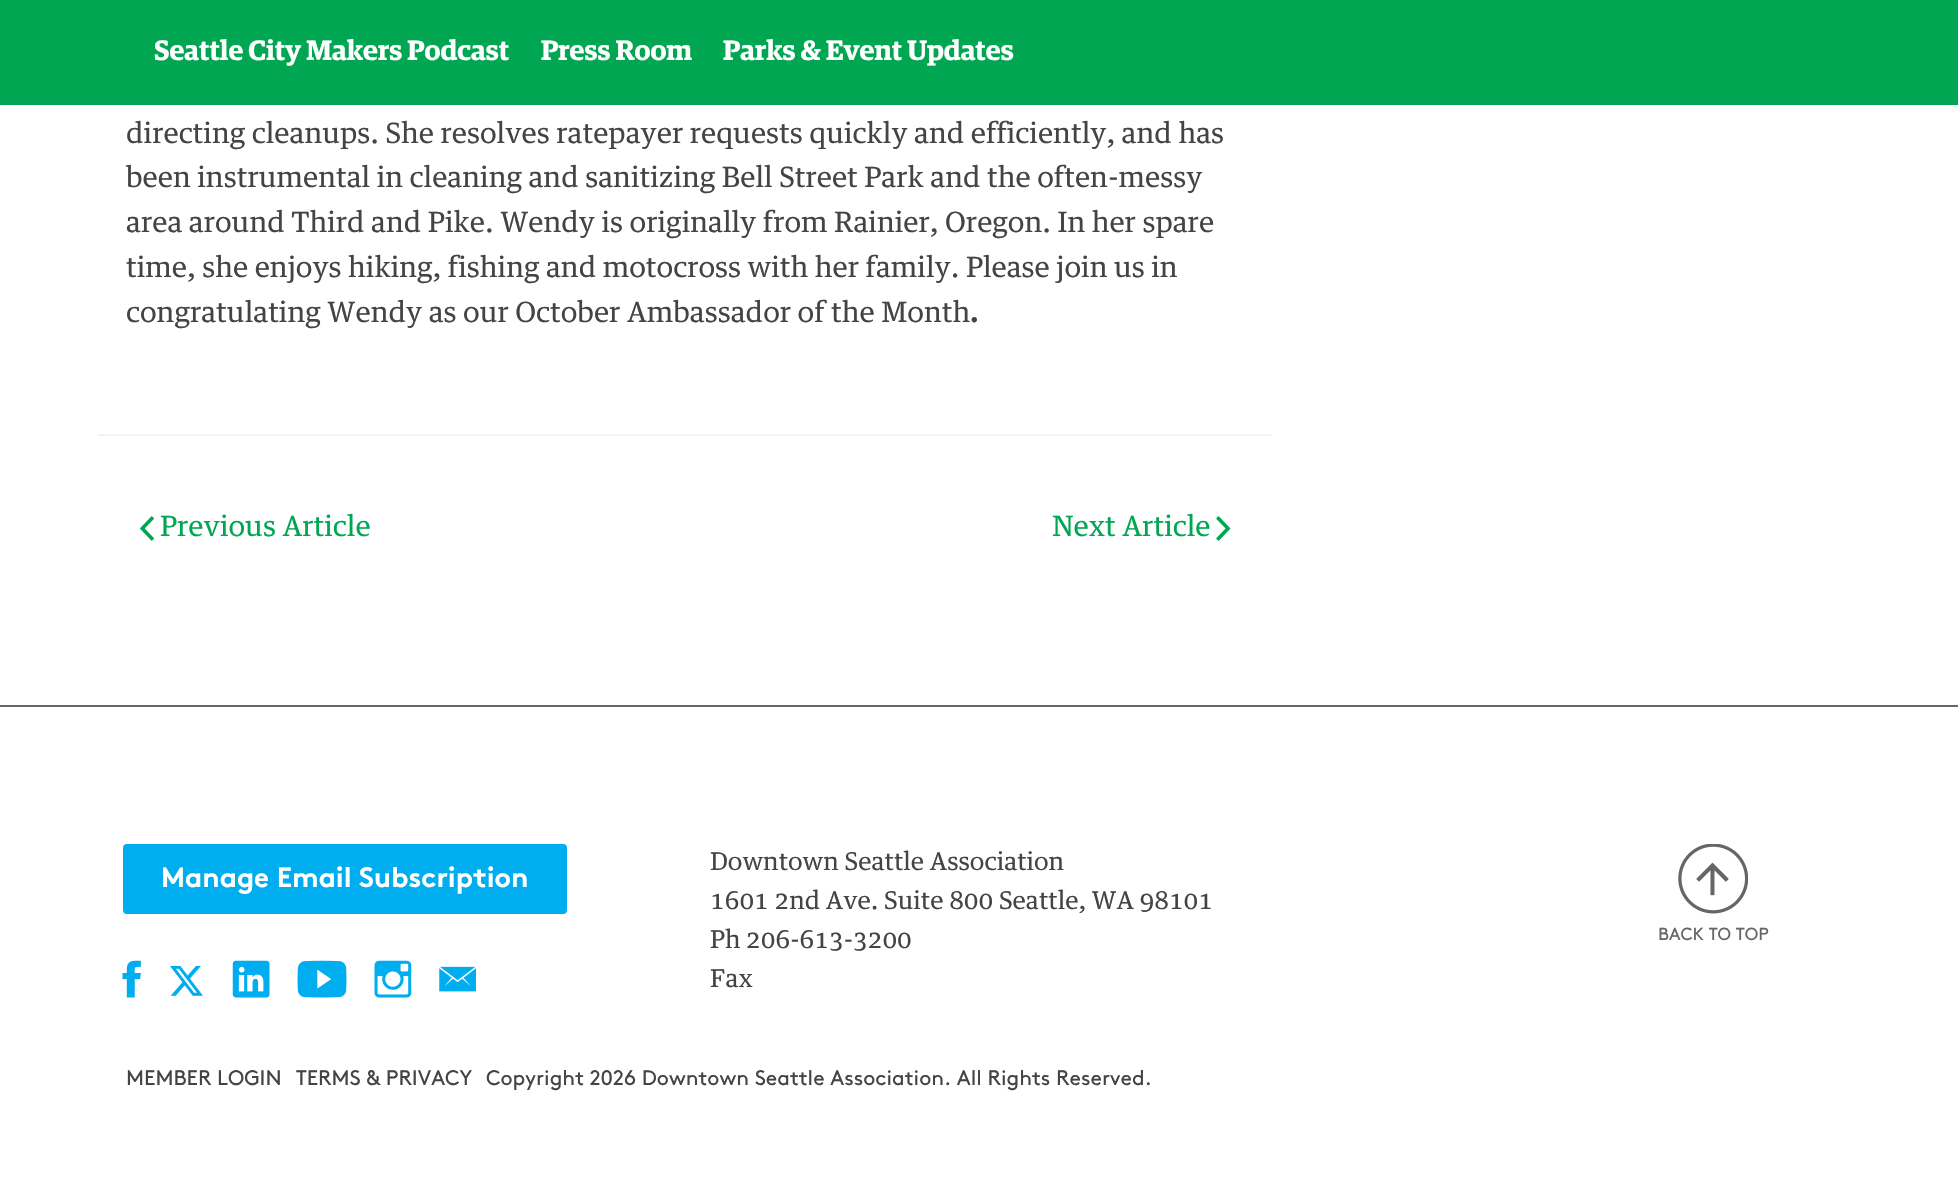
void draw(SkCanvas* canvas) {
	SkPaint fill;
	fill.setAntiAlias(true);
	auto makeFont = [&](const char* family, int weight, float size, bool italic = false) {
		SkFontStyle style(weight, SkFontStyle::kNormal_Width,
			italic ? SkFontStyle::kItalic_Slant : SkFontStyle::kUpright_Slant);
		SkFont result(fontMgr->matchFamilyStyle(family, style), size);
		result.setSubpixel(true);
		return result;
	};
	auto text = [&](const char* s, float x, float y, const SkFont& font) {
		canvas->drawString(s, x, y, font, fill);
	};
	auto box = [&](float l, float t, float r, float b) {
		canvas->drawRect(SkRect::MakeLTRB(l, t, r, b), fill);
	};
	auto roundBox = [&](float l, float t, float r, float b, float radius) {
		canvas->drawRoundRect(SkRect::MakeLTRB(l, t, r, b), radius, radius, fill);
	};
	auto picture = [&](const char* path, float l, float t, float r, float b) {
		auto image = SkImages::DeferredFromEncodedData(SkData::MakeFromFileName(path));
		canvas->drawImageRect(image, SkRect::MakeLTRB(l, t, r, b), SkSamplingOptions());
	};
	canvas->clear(0xFFFFFFFF);
	fill.setColor(0xFF00A651);
	box(0, 0, 1958, 105);
	fill.setColor(0xFFF3F3F3);
	box(98, 434, 1272, 436);
	picture("image0.png", 140, 516, 154, 541);
	picture("image1.png", 1216, 516, 1231, 541);
	fill.setColor(0xFF666666);
	box(0, 705, 1958, 707);
	fill.setColor(0xFF00AEEF);
	roundBox(123, 844, 567, 914, 4);
	picture("image2.png", 122, 960, 141, 998);
	picture("image3.png", 170, 965, 203, 996);
	picture("image4.png", 232, 960, 270, 998);
	picture("image5.png", 297, 960, 347, 998);
	picture("image6.png", 374, 960, 412, 998);
	picture("image7.png", 439, 966, 476, 992);
	picture("image8.png", 1678, 844, 1748, 914);
	auto font1 = makeFont("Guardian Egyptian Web", 600, 28);
	fill.setColor(0xFFFFFFFF);
	text("Seattle City Makers Podcast", 154, 60, font1);
	text("Press Room", 541, 60, font1);
	text("Parks & Event Updates", 723, 60, font1);
	auto font2 = makeFont("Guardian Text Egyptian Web", 400, 28);
	fill.setColor(0xFF444444);
	text("directing cleanups. She resolves ratepayer requests quickly and efficiently, and has", 126, 143, font2);
	text("been instrumental in cleaning and sanitizing Bell Street Park and the often-messy", 126, 187, font2);
	text("area around Third and Pike. Wendy is originally from Rainier, Oregon. In her spare", 126, 232, font2);
	text("time, she enjoys hiking, fishing and motocross with her family. Please join us in", 126, 277, font2);
	text("congratulating Wendy as our October Ambassador of the Month", 126, 322, font2);
	auto font3 = makeFont("Guardian Text Egyptian Web", 700, 28);
	text(".", 970, 322, font3);
	fill.setColor(0xFF00A651);
	text("Previous Article", 160, 536, font2);
	text("Next Article", 1052, 536, font2);
	auto font4 = makeFont("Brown", 700, 28);
	fill.setColor(0xFFFFFFFF);
	text("Manage Email Subscription", 161, 887, font4);
	auto font5 = makeFont("Guardian Text Egyptian Web", 400, 24.5f);
	fill.setColor(0xFF444444);
	text("Downtown Seattle Association", 710, 870, font5);
	text("1601 2nd Ave. Suite 800 Seattle, WA 98101", 710, 909, font5);
	text("Ph 206-613-3200", 710, 948, font5);
	text("Fax", 710, 987, font5);
	auto font6 = makeFont("Brown", 400, 17.5f);
	fill.setColor(0xFF666666);
	text("BACK TO TOP", 1658, 940, font6);
	auto font7 = makeFont("Brown", 400, 21);
	fill.setColor(0xFF444444);
	text("MEMBER LOGIN", 126, 1085, font7);
	text("TERMS & PRIVACY", 296, 1085, font7);
	text("Copyright 2026 Downtown Seattle Association. All Rights Reserved.", 486, 1085, font7);
}
